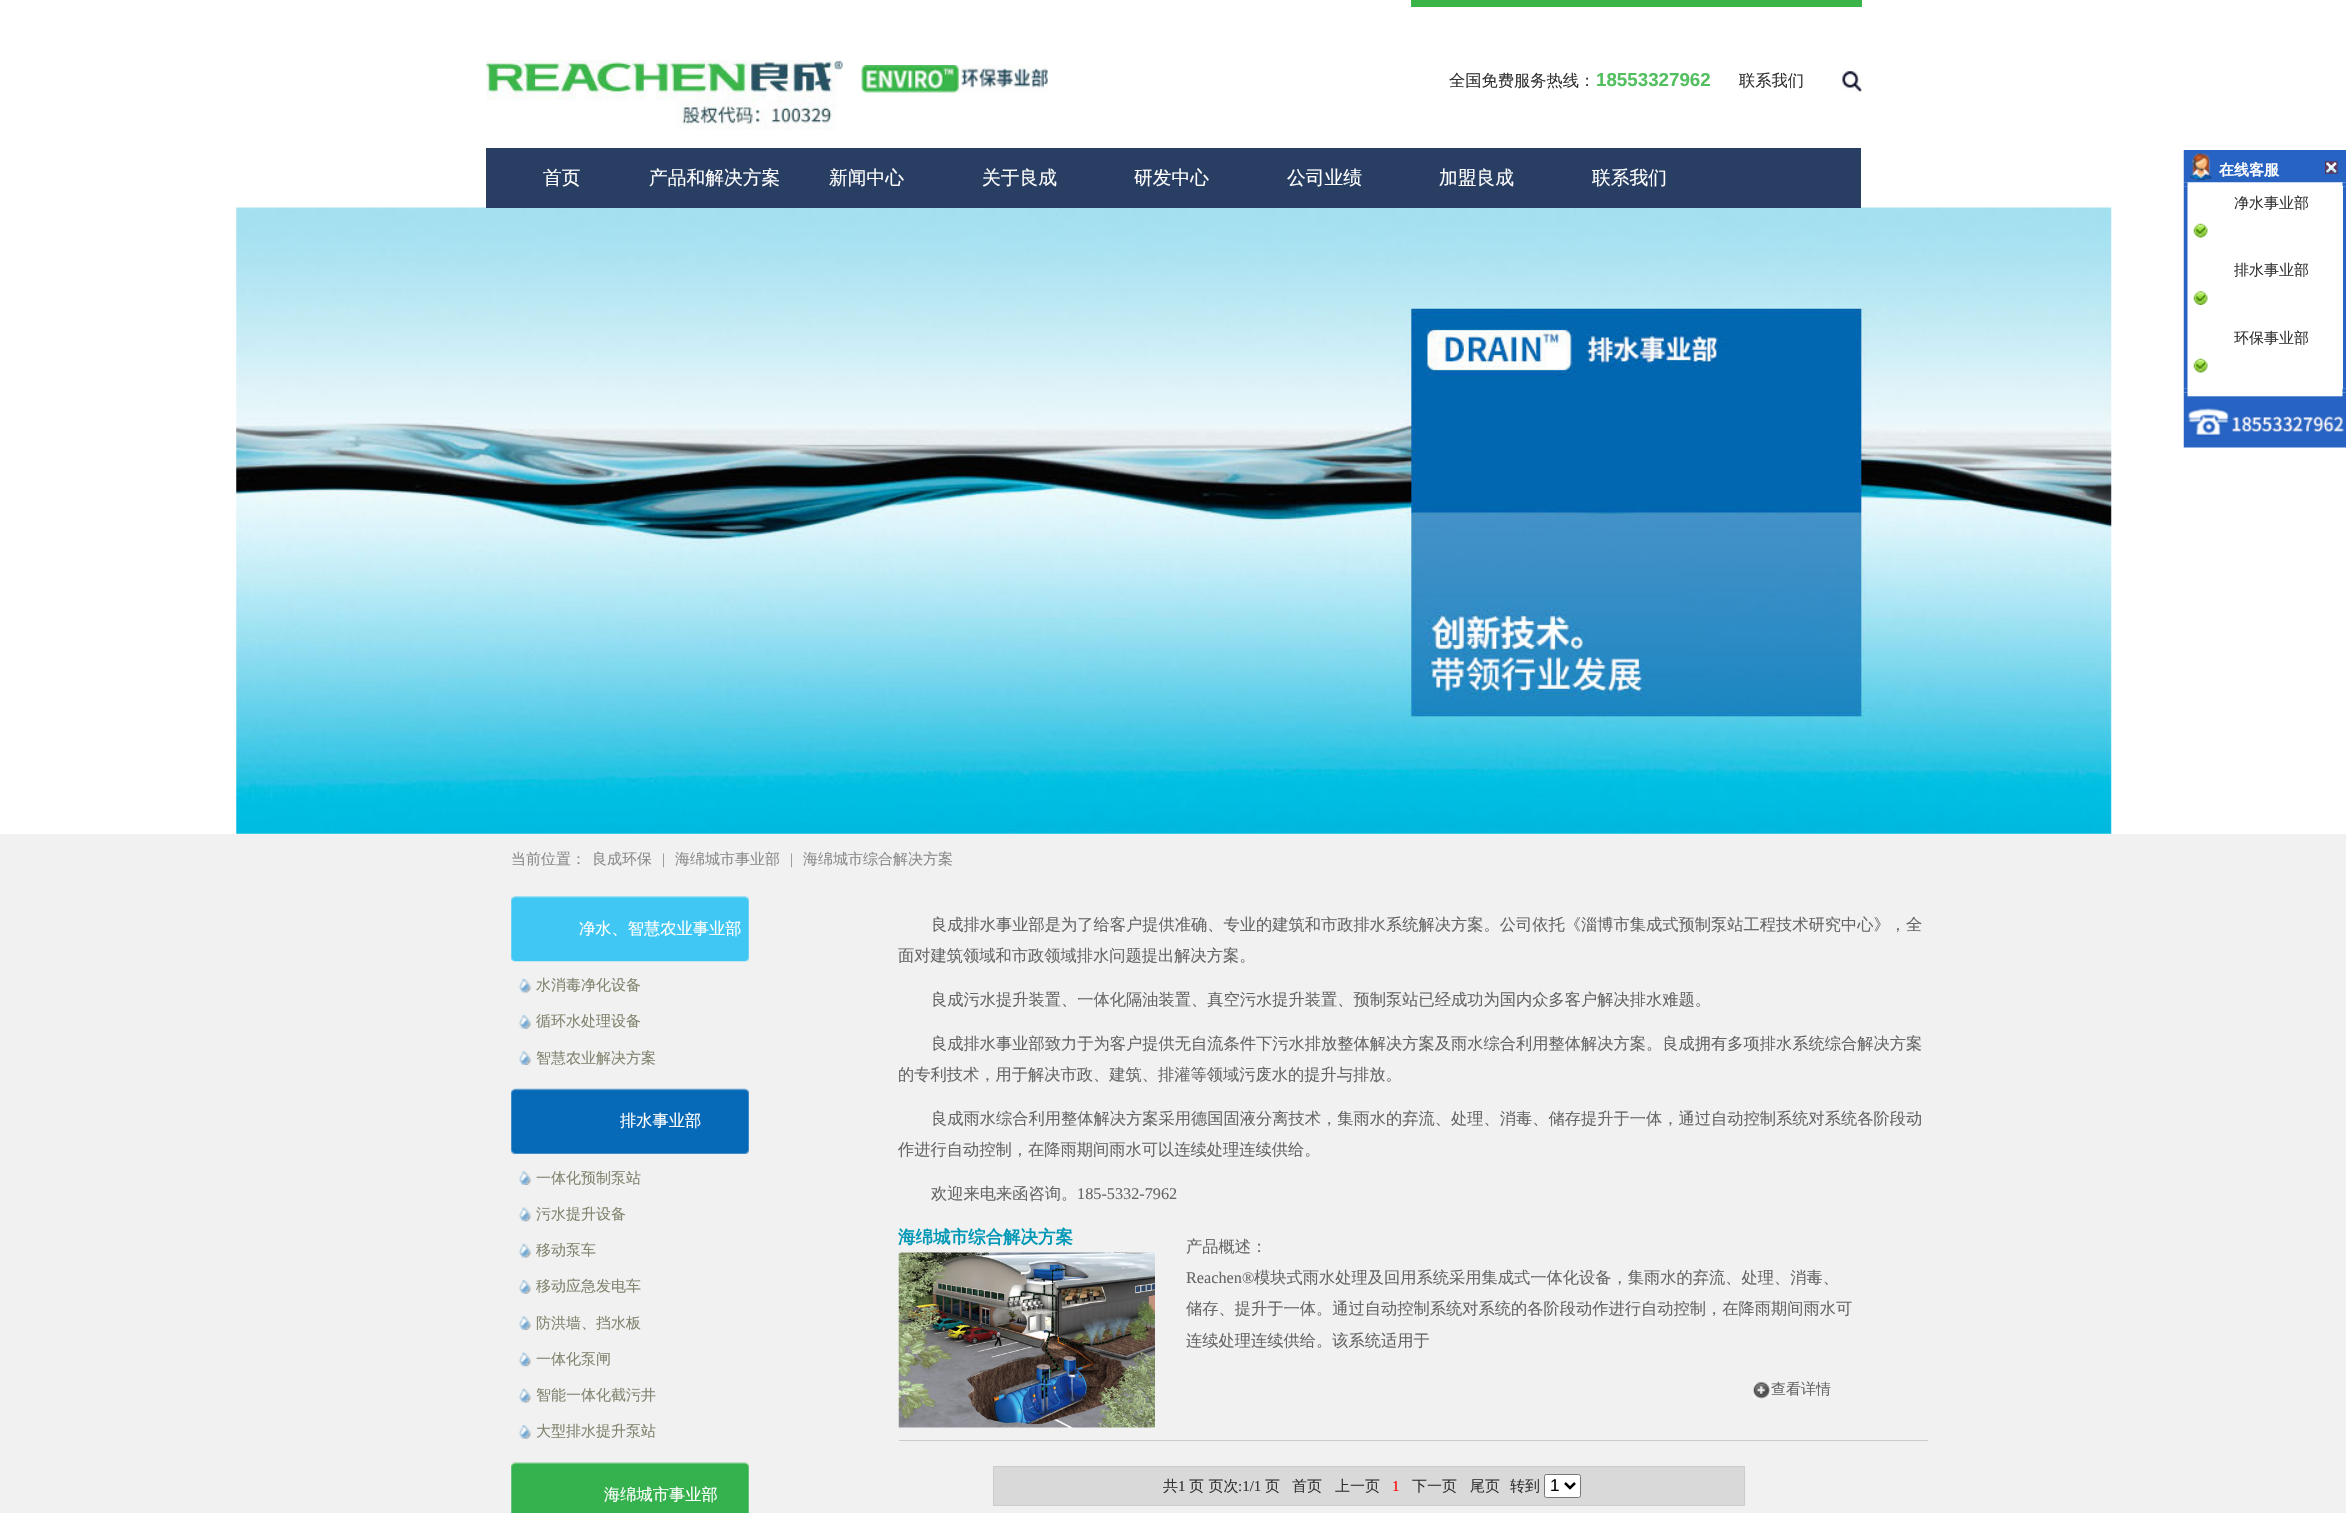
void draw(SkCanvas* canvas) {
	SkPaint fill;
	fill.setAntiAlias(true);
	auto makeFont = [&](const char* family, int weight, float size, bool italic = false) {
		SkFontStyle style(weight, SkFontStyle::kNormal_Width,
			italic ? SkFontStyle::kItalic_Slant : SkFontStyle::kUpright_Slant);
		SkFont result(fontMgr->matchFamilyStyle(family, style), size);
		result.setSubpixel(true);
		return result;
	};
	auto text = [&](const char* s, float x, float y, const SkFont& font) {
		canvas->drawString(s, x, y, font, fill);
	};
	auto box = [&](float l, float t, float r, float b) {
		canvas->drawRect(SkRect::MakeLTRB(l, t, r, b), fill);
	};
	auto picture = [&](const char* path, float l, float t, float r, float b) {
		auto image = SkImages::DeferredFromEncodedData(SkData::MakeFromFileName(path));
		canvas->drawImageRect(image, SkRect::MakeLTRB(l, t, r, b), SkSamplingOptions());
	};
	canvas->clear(0xFFF1F1F1);
	fill.setColor(0xFFFFFFFF);
	box(0, 0, 2346, 834);
	fill.setColor(0xFF3AB349);
	box(1411, 0, 1862, 7);
	picture("image0.png", 486, 60, 843, 130);
	picture("image1.png", 861, 65, 1048, 93);
	picture("image2.png", 1842, 71, 1862, 92);
	picture("image3.png", 236, 207, 2112, 834);
	fill.setColor(0xFF283E62);
	box(486, 148, 1861, 208);
	picture("image4.png", 2183, 150, 2346, 183);
	picture("image5.png", 2325, 161, 2338, 174);
	picture("image6.png", 2183, 182, 2346, 187);
	picture("image7.png", 2183, 186, 2346, 389);
	fill.setColor(0xFFFFFFFF);
	box(2342, 186, 2343, 389);
	picture("image8.png", 2193, 223, 2208, 238);
	picture("image9.png", 2193, 291, 2208, 305);
	picture("image8.png", 2193, 358, 2208, 373);
	picture("image10.png", 2183, 388, 2346, 393);
	picture("image11.png", 2183, 392, 2346, 448);
	picture("image12.png", 511, 896, 749, 962);
	picture("image13.png", 518, 978, 532, 993);
	picture("image14.png", 518, 1015, 532, 1029);
	picture("image15.png", 518, 1051, 532, 1065);
	picture("image16.png", 511, 1088, 749, 1154);
	picture("image17.png", 518, 1171, 532, 1185);
	picture("image18.png", 518, 1207, 532, 1222);
	picture("image13.png", 518, 1243, 532, 1258);
	picture("image14.png", 518, 1280, 532, 1294);
	picture("image15.png", 518, 1316, 532, 1330);
	picture("image18.png", 518, 1352, 532, 1367);
	picture("image13.png", 518, 1388, 532, 1403);
	picture("image14.png", 518, 1425, 532, 1439);
	picture("image19.png", 511, 1462, 749, 1513);
	fill.setColor(0xFFCCCCCC);
	box(899, 1440, 1928, 1441);
	picture("image20.png", 898, 1252, 1155, 1428);
	picture("image21.png", 1753, 1382, 1770, 1399);
	fill.setColor(0xFFD9D9D9);
	canvas->drawRect(SkRect::MakeLTRB(993.5f, 1466.5f, 1744.5f, 1505.5f), fill);
	fill.setStyle(SkPaint::kStroke_Style);
	fill.setStrokeWidth(1);
	fill.setColor(0xFFCCCCCC);
	canvas->drawRect(SkRect::MakeLTRB(993.5f, 1466.5f, 1744.5f, 1505.5f), fill);
	fill.setStyle(SkPaint::kFill_Style);
	fill.setColor(0xFFFFFFFF);
	canvas->drawRoundRect(SkRect::MakeLTRB(1544.5f, 1474.5f, 1580.5f, 1497.5f), 2, 2, fill);
	fill.setStyle(SkPaint::kStroke_Style);
	fill.setColor(0xFF767676);
	canvas->drawRoundRect(SkRect::MakeLTRB(1544.5f, 1474.5f, 1580.5f, 1497.5f), 2, 2, fill);
	fill.setStrokeWidth(2.5f);
	fill.setColor(0xFF000000);
	canvas->drawPath(SkPathBuilder().moveTo(1565, 1483).lineTo(1570, 1488).lineTo(1575, 1483).detach(), fill);
	auto font1 = makeFont("WenQuanYi Zen Hei", 500, 16.25f);
	fill.setStyle(SkPaint::kFill_Style);
	fill.setColor(0xFF333333);
	text("全国免费服务热线：", 1449, 86, font1);
	auto font2 = makeFont("Liberation Sans", 700, 18.75f);
	fill.setColor(0xFF54BF61);
	text("18553327962", 1596, 86, font2);
	fill.setColor(0xFF333333);
	text("联系我们", 1739, 86, font1);
	auto font3 = makeFont("WenQuanYi Zen Hei", 500, 18.75f);
	fill.setColor(0xFFFFFFFF);
	text("首页", 543, 184, font3);
	text("产品和解决方案", 649, 184, font3);
	text("新闻中心", 829, 184, font3);
	text("关于良成", 982, 184, font3);
	text("研发中心", 1134, 184, font3);
	text("公司业绩", 1287, 184, font3);
	text("加盟良成", 1439, 184, font3);
	text("联系我们", 1592, 184, font3);
	auto font4 = makeFont("WenQuanYi Zen Hei", 700, 15);
	text("在线客服", 2219, 175, font4);
	auto font5 = makeFont("WenQuanYi Zen Hei", 500, 15);
	fill.setColor(0xFF333333);
	text("净水事业部", 2234, 208, font5);
	text("排水事业部", 2234, 275, font5);
	text("环保事业部", 2234, 343, font5);
	fill.setColor(0xFF8B8B8B);
	text("当前位置：", 511, 864, font5);
	text("良成环保", 592, 864, font5);
	auto font6 = makeFont("Liberation Serif", 400, 15);
	text("|", 662, 864, font6);
	text("海绵城市事业部", 675, 864, font5);
	text("|", 790, 864, font6);
	text("海绵城市综合解决方案", 803, 864, font5);
	fill.setColor(0xFFFFFFFF);
	text("净水、智慧农业事业部", 579, 934, font1);
	fill.setColor(0xFF82846F);
	text("水消毒净化设备", 536, 990, font5);
	text("循环水处理设备", 536, 1026, font5);
	text("智慧农业解决方案", 536, 1063, font5);
	fill.setColor(0xFFFFFFFF);
	text("排水事业部", 620, 1126, font1);
	fill.setColor(0xFF82846F);
	text("一体化预制泵站", 536, 1183, font5);
	text("污水提升设备", 536, 1219, font5);
	text("移动泵车", 536, 1255, font5);
	text("移动应急发电车", 536, 1291, font5);
	text("防洪墙、挡水板", 536, 1328, font5);
	text("一体化泵闸", 536, 1364, font5);
	text("智能一体化截污井", 536, 1400, font5);
	text("大型排水提升泵站", 536, 1436, font5);
	fill.setColor(0xFFFFFFFF);
	text("海绵城市事业部", 604, 1500, font1);
	fill.setColor(0xFF666666);
	text("良成排水事业部是为了给客户提供准确、专业的建筑和市政排水系统解决方案。公司依托《淄博市集成式预制泵站工程技术研究中心》，全", 931, 930, font1);
	text("面对建筑领域和市政领域排水问题提出解决方案。", 898, 961, font1);
	text("良成污水提升装置、一体化隔油装置、真空污水提升装置、预制泵站已经成功为国内众多客户解决排水难题。", 931, 1005, font1);
	text("良成排水事业部致力于为客户提供无自流条件下污水排放整体解决方案及雨水综合利用整体解决方案。良成拥有多项排水系统综合解决方案", 931, 1049, font1);
	text("的专利技术，用于解决市政、建筑、排灌等领域污废水的提升与排放。", 898, 1080, font1);
	text("良成雨水综合利用整体解决方案采用德国固液分离技术，集雨水的弃流、处理、消毒、储存提升于一体，通过自动控制系统对系统各阶段动", 931, 1124, font1);
	text("作进行自动控制，在降雨期间雨水可以连续处理连续供给。", 898, 1155, font1);
	text("欢迎来电来函咨询。", 931, 1199, font1);
	auto font7 = makeFont("Liberation Serif", 400, 16.25f);
	text("185-5332-7962", 1077, 1199, font7);
	auto font8 = makeFont("WenQuanYi Zen Hei", 700, 17.5f);
	fill.setColor(0xFF0098B6);
	text("海绵城市综合解决方案", 898, 1243, font8);
	fill.setColor(0xFF666666);
	text("产品概述：", 1186, 1252, font1);
	text("Reachen®", 1186, 1283, font7);
	text("模块式雨水处理及回用系统采用集成式一体化设备，集雨水的弃流、处理、消毒、", 1254, 1283, font1);
	text("储存、提升于一体。通过自动控制系统对系统的各阶段动作进行自动控制，在降雨期间雨水可", 1186, 1314, font1);
	text("连续处理连续供给。该系统适用于", 1186, 1346, font1);
	text("查看详情", 1771, 1394, font5);
	fill.setColor(0xFF333333);
	text("共", 1163, 1491, font5);
	text("1", 1178, 1491, font6);
	text("页 页次", 1189, 1491, font5);
	text(":1/1", 1238, 1491, font6);
	text("页", 1265, 1491, font5);
	text("首页", 1292, 1491, font5);
	text("上一页", 1335, 1491, font5);
	fill.setColor(0xFFFF0000);
	text("1", 1392, 1491, font6);
	fill.setColor(0xFF333333);
	text("下一页", 1412, 1491, font5);
	text("尾页", 1470, 1491, font5);
	text("转到", 1510, 1491, font5);
	auto font9 = makeFont("Liberation Sans", 400, 17);
	fill.setColor(0xFF000000);
	text("1", 1550, 1491, font9);
}
